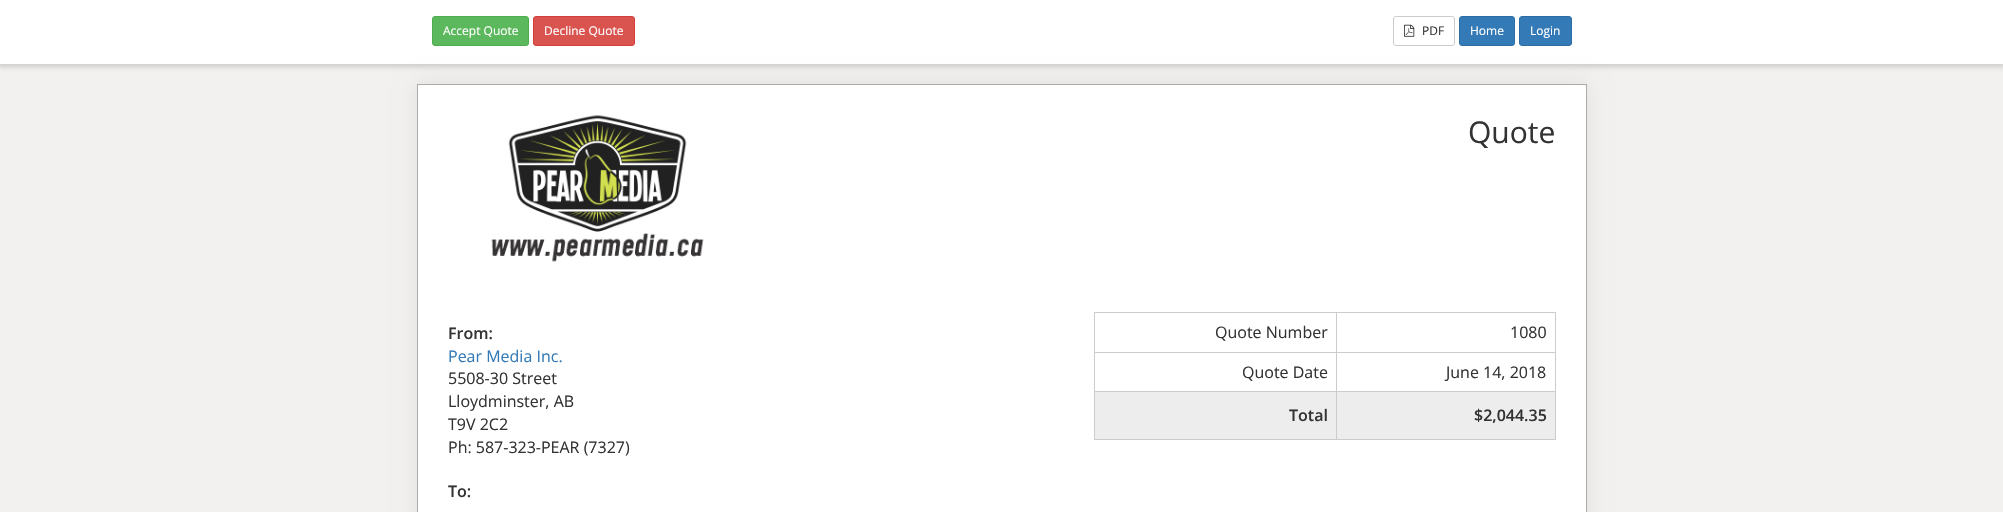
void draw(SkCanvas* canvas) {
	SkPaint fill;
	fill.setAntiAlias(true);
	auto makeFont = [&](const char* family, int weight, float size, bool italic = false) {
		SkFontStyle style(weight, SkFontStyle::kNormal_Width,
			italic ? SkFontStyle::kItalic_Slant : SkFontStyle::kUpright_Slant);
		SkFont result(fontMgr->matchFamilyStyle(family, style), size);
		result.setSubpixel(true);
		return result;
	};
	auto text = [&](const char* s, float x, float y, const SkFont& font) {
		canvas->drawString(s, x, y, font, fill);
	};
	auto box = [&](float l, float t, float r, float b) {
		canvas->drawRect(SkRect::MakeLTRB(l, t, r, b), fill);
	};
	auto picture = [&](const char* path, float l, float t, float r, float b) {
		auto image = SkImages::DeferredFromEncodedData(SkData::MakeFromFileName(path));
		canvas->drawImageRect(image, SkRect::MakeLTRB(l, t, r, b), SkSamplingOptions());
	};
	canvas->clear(0xFFF2F1EF);
	fill.setColor(0x26000000);
	fill.setMaskFilter(SkMaskFilter::MakeBlur(kNormal_SkBlurStyle, 2.5f));
	canvas->drawRect(SkRect::MakeLTRB(-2, -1, 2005, 67), fill);
	fill.setMaskFilter(nullptr);
	fill.setColor(0xFFFFFFFF);
	box(0, 0, 2003, 64);
	fill.setColor(0xFF5CB85C);
	canvas->drawRoundRect(SkRect::MakeLTRB(432.5f, 16.5f, 528.5f, 45.5f), 2.5f, 2.5f, fill);
	fill.setStyle(SkPaint::kStroke_Style);
	fill.setStrokeWidth(1);
	fill.setColor(0xFF4CAE4C);
	canvas->drawRoundRect(SkRect::MakeLTRB(432.5f, 16.5f, 528.5f, 45.5f), 2.5f, 2.5f, fill);
	fill.setStyle(SkPaint::kFill_Style);
	fill.setColor(0xFFD9534F);
	canvas->drawRoundRect(SkRect::MakeLTRB(533.5f, 16.5f, 634.5f, 45.5f), 2.5f, 2.5f, fill);
	fill.setStyle(SkPaint::kStroke_Style);
	fill.setColor(0xFFD43F3A);
	canvas->drawRoundRect(SkRect::MakeLTRB(533.5f, 16.5f, 634.5f, 45.5f), 2.5f, 2.5f, fill);
	fill.setColor(0xFFCCCCCC);
	canvas->drawRoundRect(SkRect::MakeLTRB(1393.5f, 16.5f, 1454.5f, 45.5f), 2.5f, 2.5f, fill);
	picture("image0.png", 1404, 24, 1415, 37);
	fill.setStyle(SkPaint::kFill_Style);
	fill.setColor(0xFF337AB7);
	canvas->drawRoundRect(SkRect::MakeLTRB(1459.5f, 16.5f, 1514.5f, 45.5f), 2.5f, 2.5f, fill);
	fill.setStyle(SkPaint::kStroke_Style);
	fill.setColor(0xFF2E6DA4);
	canvas->drawRoundRect(SkRect::MakeLTRB(1459.5f, 16.5f, 1514.5f, 45.5f), 2.5f, 2.5f, fill);
	fill.setStyle(SkPaint::kFill_Style);
	fill.setColor(0xFF337AB7);
	canvas->drawRoundRect(SkRect::MakeLTRB(1519.5f, 16.5f, 1571.5f, 45.5f), 2.5f, 2.5f, fill);
	fill.setStyle(SkPaint::kStroke_Style);
	fill.setColor(0xFF2E6DA4);
	canvas->drawRoundRect(SkRect::MakeLTRB(1519.5f, 16.5f, 1571.5f, 45.5f), 2.5f, 2.5f, fill);
	fill.setStyle(SkPaint::kFill_Style);
	fill.setColor(0x12000000);
	fill.setMaskFilter(SkMaskFilter::MakeBlur(kNormal_SkBlurStyle, 10));
	canvas->drawRect(SkRect::MakeLTRB(417, 84, 1587, 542), fill);
	fill.setMaskFilter(nullptr);
	fill.setColor(0xFFFFFFFF);
	canvas->drawRect(SkRect::MakeLTRB(417.5f, 84.5f, 1586.5f, 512.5f), fill);
	fill.setStyle(SkPaint::kStroke_Style);
	fill.setColor(0xFFAAAAAA);
	canvas->drawRect(SkRect::MakeLTRB(417.5f, 84.5f, 1586.5f, 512.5f), fill);
	picture("image1.png", 491, 115, 704, 262);
	fill.setStyle(SkPaint::kFill_Style);
	fill.setColor(0xFFCCCCCC);
	box(1094, 312, 1556, 313);
	box(1555, 312, 1556, 440);
	box(1094, 439, 1556, 440);
	box(1094, 312, 1095, 440);
	box(1336, 352, 1556, 353);
	box(1336, 391, 1556, 392);
	box(1336, 391, 1337, 440);
	box(1094, 391, 1337, 392);
	box(1336, 352, 1337, 392);
	box(1094, 352, 1337, 353);
	box(1336, 312, 1337, 353);
	fill.setColor(0xFFEDEDED);
	box(1095, 392, 1336, 439);
	box(1337, 392, 1555, 439);
	auto font1 = makeFont("Open Sans", 400, 12);
	fill.setColor(0xFFFFFFFF);
	text("Accept Quote", 443, 35, font1);
	text("Decline Quote", 544, 35, font1);
	fill.setColor(0xFF333333);
	text("PDF", 1422, 35, font1);
	fill.setColor(0xFFFFFFFF);
	text("Home", 1470, 35, font1);
	text("Login", 1530, 35, font1);
	auto font2 = makeFont("Open Sans", 400, 30);
	fill.setColor(0xFF333333);
	text("Quote", 1468, 143, font2);
	auto font3 = makeFont("Open Sans", 600, 16);
	text("From:", 448, 339, font3);
	auto font4 = makeFont("Open Sans", 400, 16);
	fill.setColor(0xFF337AB7);
	text("Pear Media Inc.", 448, 362, font4);
	fill.setColor(0xFF333333);
	text("5508-30 Street", 448, 384, font4);
	text("Lloydminster, AB", 448, 407, font4);
	text("T9V 2C2", 448, 430, font4);
	text("Ph: 587-323-PEAR (7327)", 448, 453, font4);
	text("Quote Number", 1215, 338, font4);
	text("1080", 1510, 338, font4);
	text("Quote Date", 1242, 378, font4);
	text("June 14, 2018", 1446, 378, font4);
	text("Total", 1289, 421, font3);
	text("$2,044.35", 1474, 421, font3);
	text("To:", 448, 497, font3);
}
